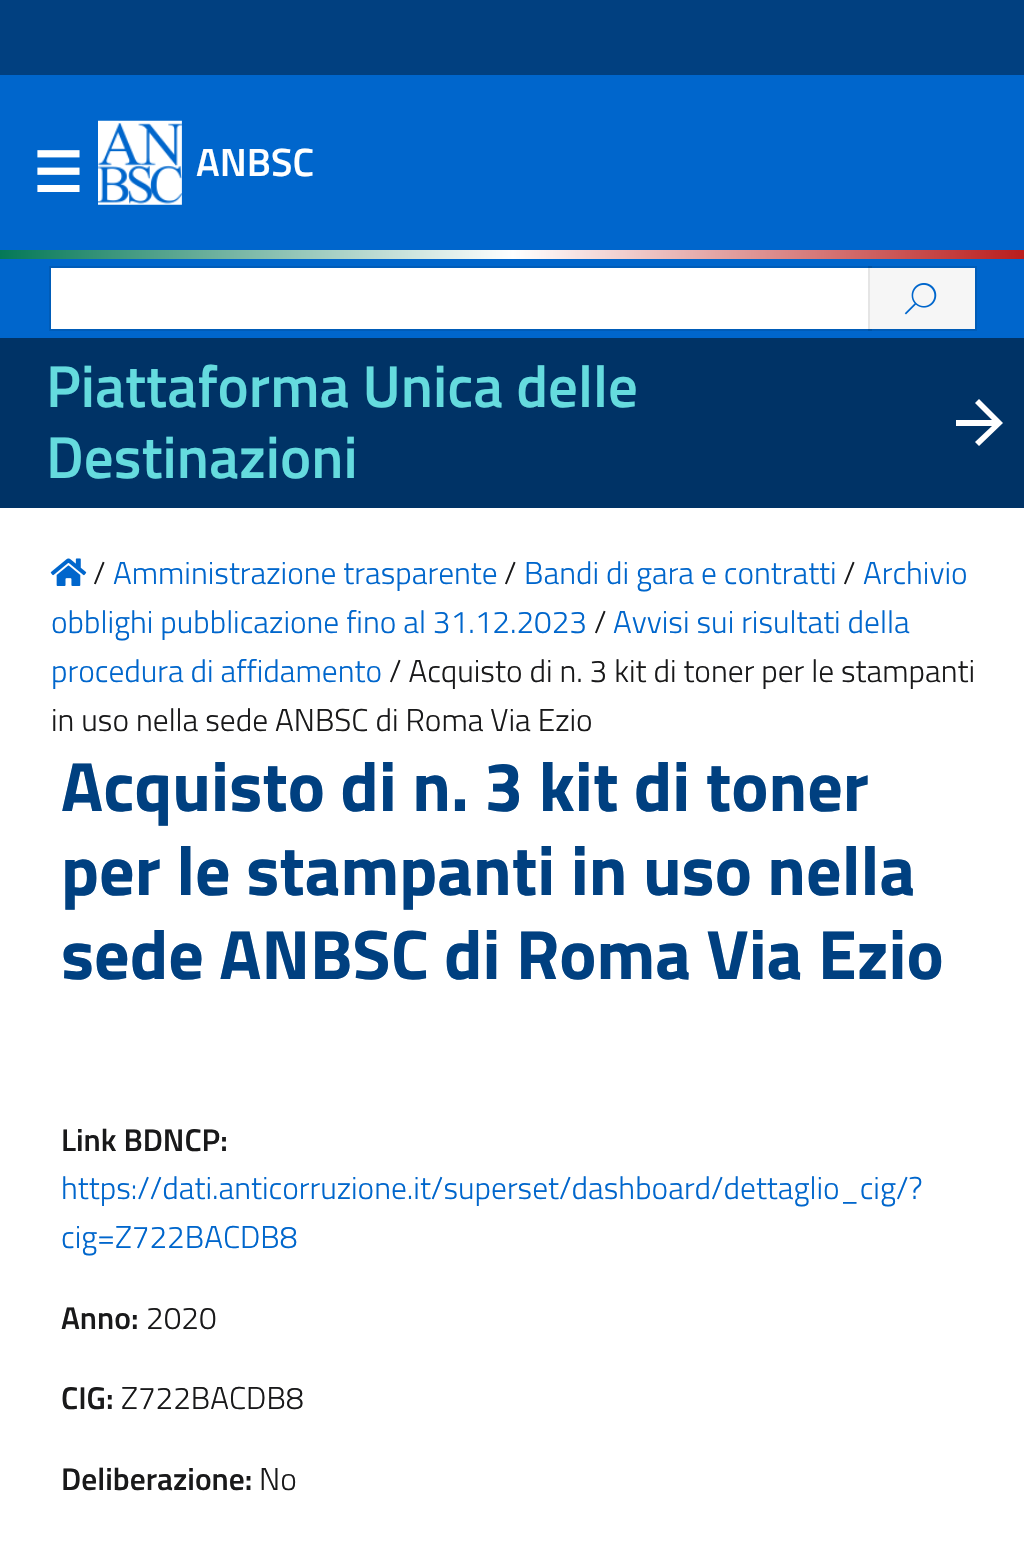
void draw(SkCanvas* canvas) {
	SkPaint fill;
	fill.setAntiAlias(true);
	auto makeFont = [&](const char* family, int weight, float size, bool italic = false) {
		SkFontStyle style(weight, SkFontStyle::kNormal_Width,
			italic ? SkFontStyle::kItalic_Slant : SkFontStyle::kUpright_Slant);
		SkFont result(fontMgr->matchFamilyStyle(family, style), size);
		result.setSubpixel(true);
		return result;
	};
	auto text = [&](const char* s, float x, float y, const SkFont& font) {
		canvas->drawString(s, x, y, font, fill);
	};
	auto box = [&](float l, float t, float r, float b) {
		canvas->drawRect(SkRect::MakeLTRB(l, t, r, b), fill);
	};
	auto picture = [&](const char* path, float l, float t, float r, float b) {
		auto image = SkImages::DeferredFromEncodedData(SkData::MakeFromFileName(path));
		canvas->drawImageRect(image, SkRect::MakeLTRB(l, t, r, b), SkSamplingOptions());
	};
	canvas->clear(0xFFFFFFFF);
	fill.setColor(0xFF0066CC);
	box(0, 75, 1024, 338);
	fill.setColor(0xFF014080);
	box(0, 0, 1024, 75);
	picture("image0.png", 98, 120, 182, 205);
	fill.setStyle(SkPaint::kStroke_Style);
	fill.setStrokeWidth(2);
	fill.setColor(0xFF005CB8);
	canvas->drawRect(SkRect::MakeLTRB(50, 267, 871, 330), fill);
	fill.setStyle(SkPaint::kFill_Style);
	fill.setColor(0xFFFFFFFF);
	box(51, 268, 870, 329);
	fill.setStyle(SkPaint::kStroke_Style);
	fill.setColor(0x1A000000);
	canvas->drawRect(SkRect::MakeLTRB(869, 267, 976, 330), fill);
	fill.setStyle(SkPaint::kFill_Style);
	fill.setColor(0xFFF6F6F6);
	box(870, 268, 975, 329);
	picture("image1.png", 904, 283, 937, 315);
	fill.setColor(0xFF003366);
	box(0, 338, 1024, 508);
	fill.setColor(0xFFFFFFFF);
	canvas->drawPath(SkPathBuilder().moveTo(956, 426).lineTo(992, 426).lineTo(975, 442).lineTo(979, 446).lineTo(1003, 423).lineTo(979, 399).lineTo(975, 403).lineTo(992, 420).lineTo(956, 420).close().detach(), fill);
	{
		const SkColor colors[] = {0xFF047857, 0xFFFFFFFF, 0xFFB91C1C};
		const float stops[] = {0, 0.5f, 1};
		const SkPoint ends[] = {{0, 255}, {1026, 255}};
		fill.setShader(SkGradientShader::MakeLinear(ends, colors, stops, 3, SkTileMode::kClamp));
		fill.setAlpha(255);
	}
	box(0, 250, 1024, 259);
	picture("image2.png", 50, 558, 87, 586);
	auto font1 = makeFont("Titillium Web", 600, 39.5f);
	fill.setShader(nullptr);
	fill.setColor(0xFFFFFFFF);
	text("ANBSC", 196, 176, font1);
	auto font2 = makeFont("DejaVu Sans", 700, 55);
	text("☰", 33, 192, font2);
	auto font3 = makeFont("Titillium Web", 600, 59);
	fill.setColor(0xFF65DBDE);
	text("Piattaforma Unica delle", 46, 407, font3);
	text("Destinazioni", 46, 478, font3);
	auto font4 = makeFont("Titillium Web", 300, 31.5f);
	fill.setColor(0xFF19191A);
	text("/", 93, 584, font4);
	fill.setColor(0xFF0066CC);
	text("Amministrazione trasparente", 113, 584, font4);
	fill.setColor(0xFF19191A);
	text("/", 504, 584, font4);
	fill.setColor(0xFF0066CC);
	text("Bandi di gara e contratti", 524, 584, font4);
	fill.setColor(0xFF19191A);
	text("/", 843, 584, font4);
	fill.setColor(0xFF0066CC);
	text("Archivio", 863, 584, font4);
	text("obblighi pubblicazione fino al 31.12.2023", 51, 633, font4);
	fill.setColor(0xFF19191A);
	text("/", 594, 633, font4);
	fill.setColor(0xFF0066CC);
	text("Avvisi sui risultati della", 613, 633, font4);
	text("procedura di affidamento", 51, 682, font4);
	fill.setColor(0xFF19191A);
	text("/ Acquisto di n. 3 kit di toner per le stampanti", 389, 682, font4);
	text("in uso nella sede ANBSC di Roma Via Ezio", 51, 731, font4);
	auto font5 = makeFont("Titillium Web", 700, 70);
	fill.setColor(0xFF004080);
	text("Acquisto di n. 3 kit di toner", 61, 811, font5);
	text("per le stampanti in uso nella", 61, 895, font5);
	text("sede ANBSC di Roma Via Ezio", 61, 979, font5);
	auto font6 = makeFont("Titillium Web", 600, 31.5f);
	fill.setColor(0xFF19191A);
	text("Link BDNCP:", 61, 1151, font6);
	fill.setColor(0xFF0066CC);
	text("https://dati.anticorruzione.it/superset/dashboard/dettaglio_cig/?", 61, 1199, font4);
	text("cig=Z722BACDB8", 61, 1248, font4);
	fill.setColor(0xFF19191A);
	text("Anno:", 61, 1329, font6);
	text("2020", 146, 1329, font4);
	text("CIG:", 61, 1409, font6);
	text("Z722BACDB8", 121, 1409, font4);
	text("Deliberazione:", 61, 1490, font6);
	text("No", 259, 1490, font4);
}
